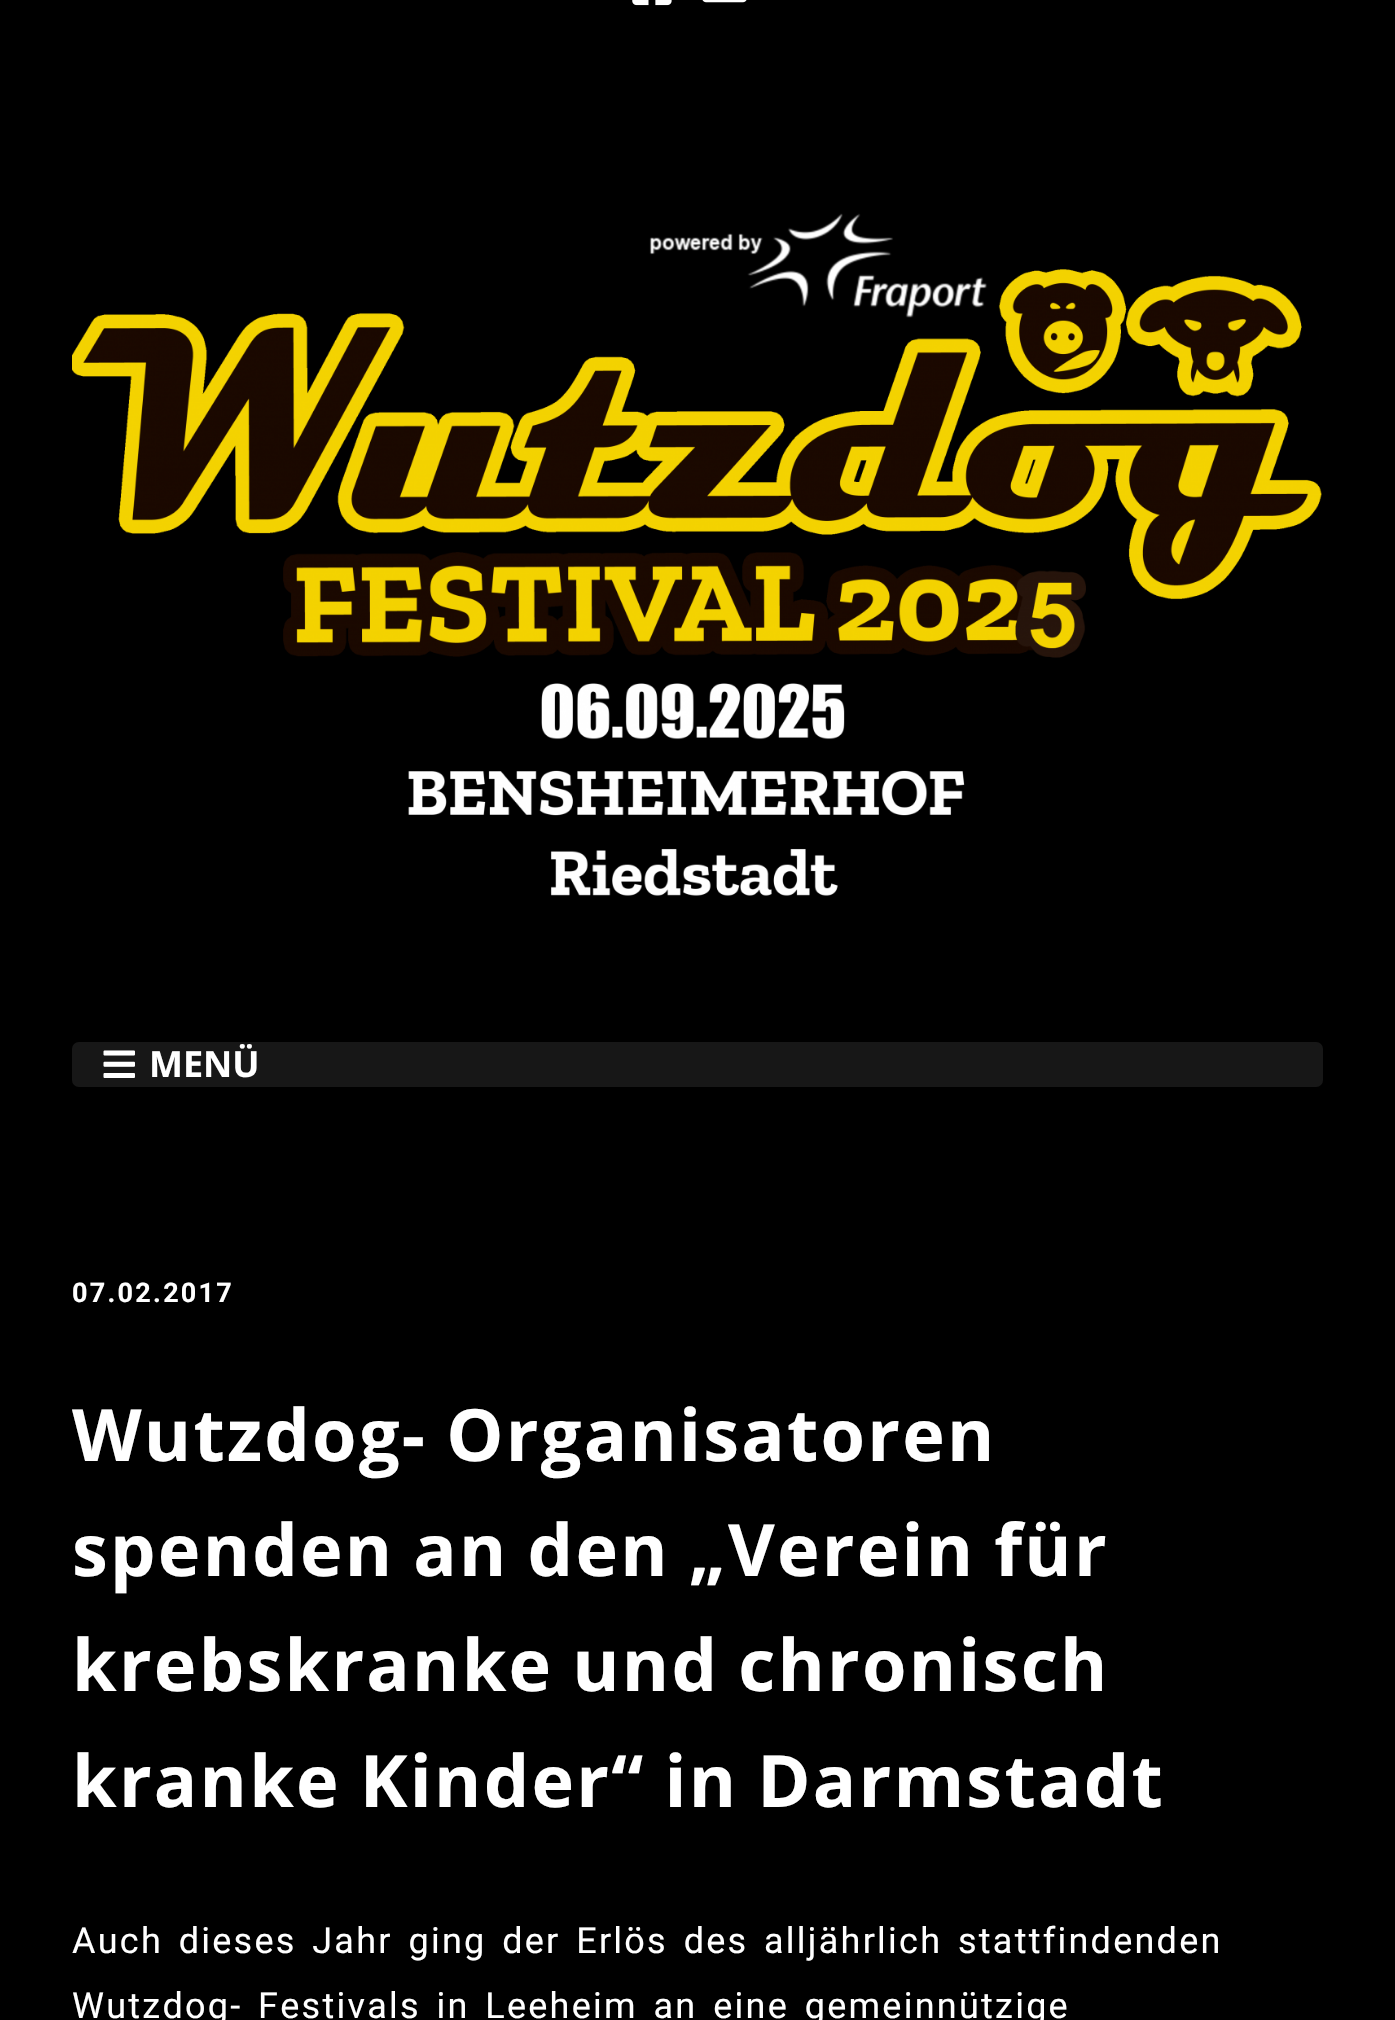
void draw(SkCanvas* canvas) {
	SkPaint fill;
	fill.setAntiAlias(true);
	auto makeFont = [&](const char* family, int weight, float size, bool italic = false) {
		SkFontStyle style(weight, SkFontStyle::kNormal_Width,
			italic ? SkFontStyle::kItalic_Slant : SkFontStyle::kUpright_Slant);
		SkFont result(fontMgr->matchFamilyStyle(family, style), size);
		result.setSubpixel(true);
		return result;
	};
	auto text = [&](const char* s, float x, float y, const SkFont& font) {
		canvas->drawString(s, x, y, font, fill);
	};
	auto spacedText = [&](const char* s, float x, float y, const SkFont& font, const SkPaint& ink, float letter, float word) {
		std::vector<SkGlyphID> glyphs(font.countText(s, strlen(s), SkTextEncoding::kUTF8));
		std::vector<float> xs(glyphs.size());
		font.textToGlyphs(s, strlen(s), SkTextEncoding::kUTF8, glyphs);
		font.getXPos(glyphs, xs, x);
		float extra = 0;
		for (size_t i = 0; i < glyphs.size(); i++) {
			xs[i] += extra;
			extra += letter + word * (glyphs[i] == font.unicharToGlyph(' '));
		}
		canvas->drawTextBlob(SkTextBlob::MakeFromPosHGlyphs(glyphs, xs, y, font), 0, 0, ink);
	};
	auto roundBox = [&](float l, float t, float r, float b, float radius) {
		canvas->drawRoundRect(SkRect::MakeLTRB(l, t, r, b), radius, radius, fill);
	};
	auto picture = [&](const char* path, float l, float t, float r, float b) {
		auto image = SkImages::DeferredFromEncodedData(SkData::MakeFromFileName(path));
		canvas->drawImageRect(image, SkRect::MakeLTRB(l, t, r, b), SkSamplingOptions());
	};
	canvas->clear(0xFF000000);
	picture("image0.png", 632, 0, 672, 6);
	picture("image1.png", 702, 0, 747, 3);
	picture("image2.png", 72, 213, 1322, 896);
	fill.setColor(0xFF171717);
	roundBox(72, 1042, 1323, 1087, 7);
	picture("image3.png", 103, 1050, 135, 1078);
	auto font1 = makeFont("Open Sans", 700, 36);
	fill.setColor(0xFFFFFFFF);
	text("MENÜ", 149, 1077, font1);
	auto font2 = makeFont("Roboto", 700, 27);
	spacedText("07.02.2017", 72, 1302, font2, fill, 2.25f, 0);
	auto font3 = makeFont("Open Sans", 700, 72);
	spacedText("Wutzdog- Organisatoren", 72, 1461, font3, fill, 2.25f, -2);
	spacedText("spenden an den „Verein für", 72, 1576, font3, fill, 2.25f, -2);
	spacedText("krebskranke und chronisch", 72, 1691, font3, fill, 2.25f, -2);
	spacedText("kranke Kinder“ in Darmstadt", 72, 1807, font3, fill, 2.25f, -2);
	auto font4 = makeFont("Roboto", 400, 36);
	spacedText("Auch dieses Jahr ging der Erlös des alljährlich stattfindenden", 72, 1953, font4, fill, 2.25f, 4.5f);
	spacedText("Wutzdog- Festivals in Leeheim an eine gemeinnützige", 72, 2018, font4, fill, 2.25f, 4.5f);
}
